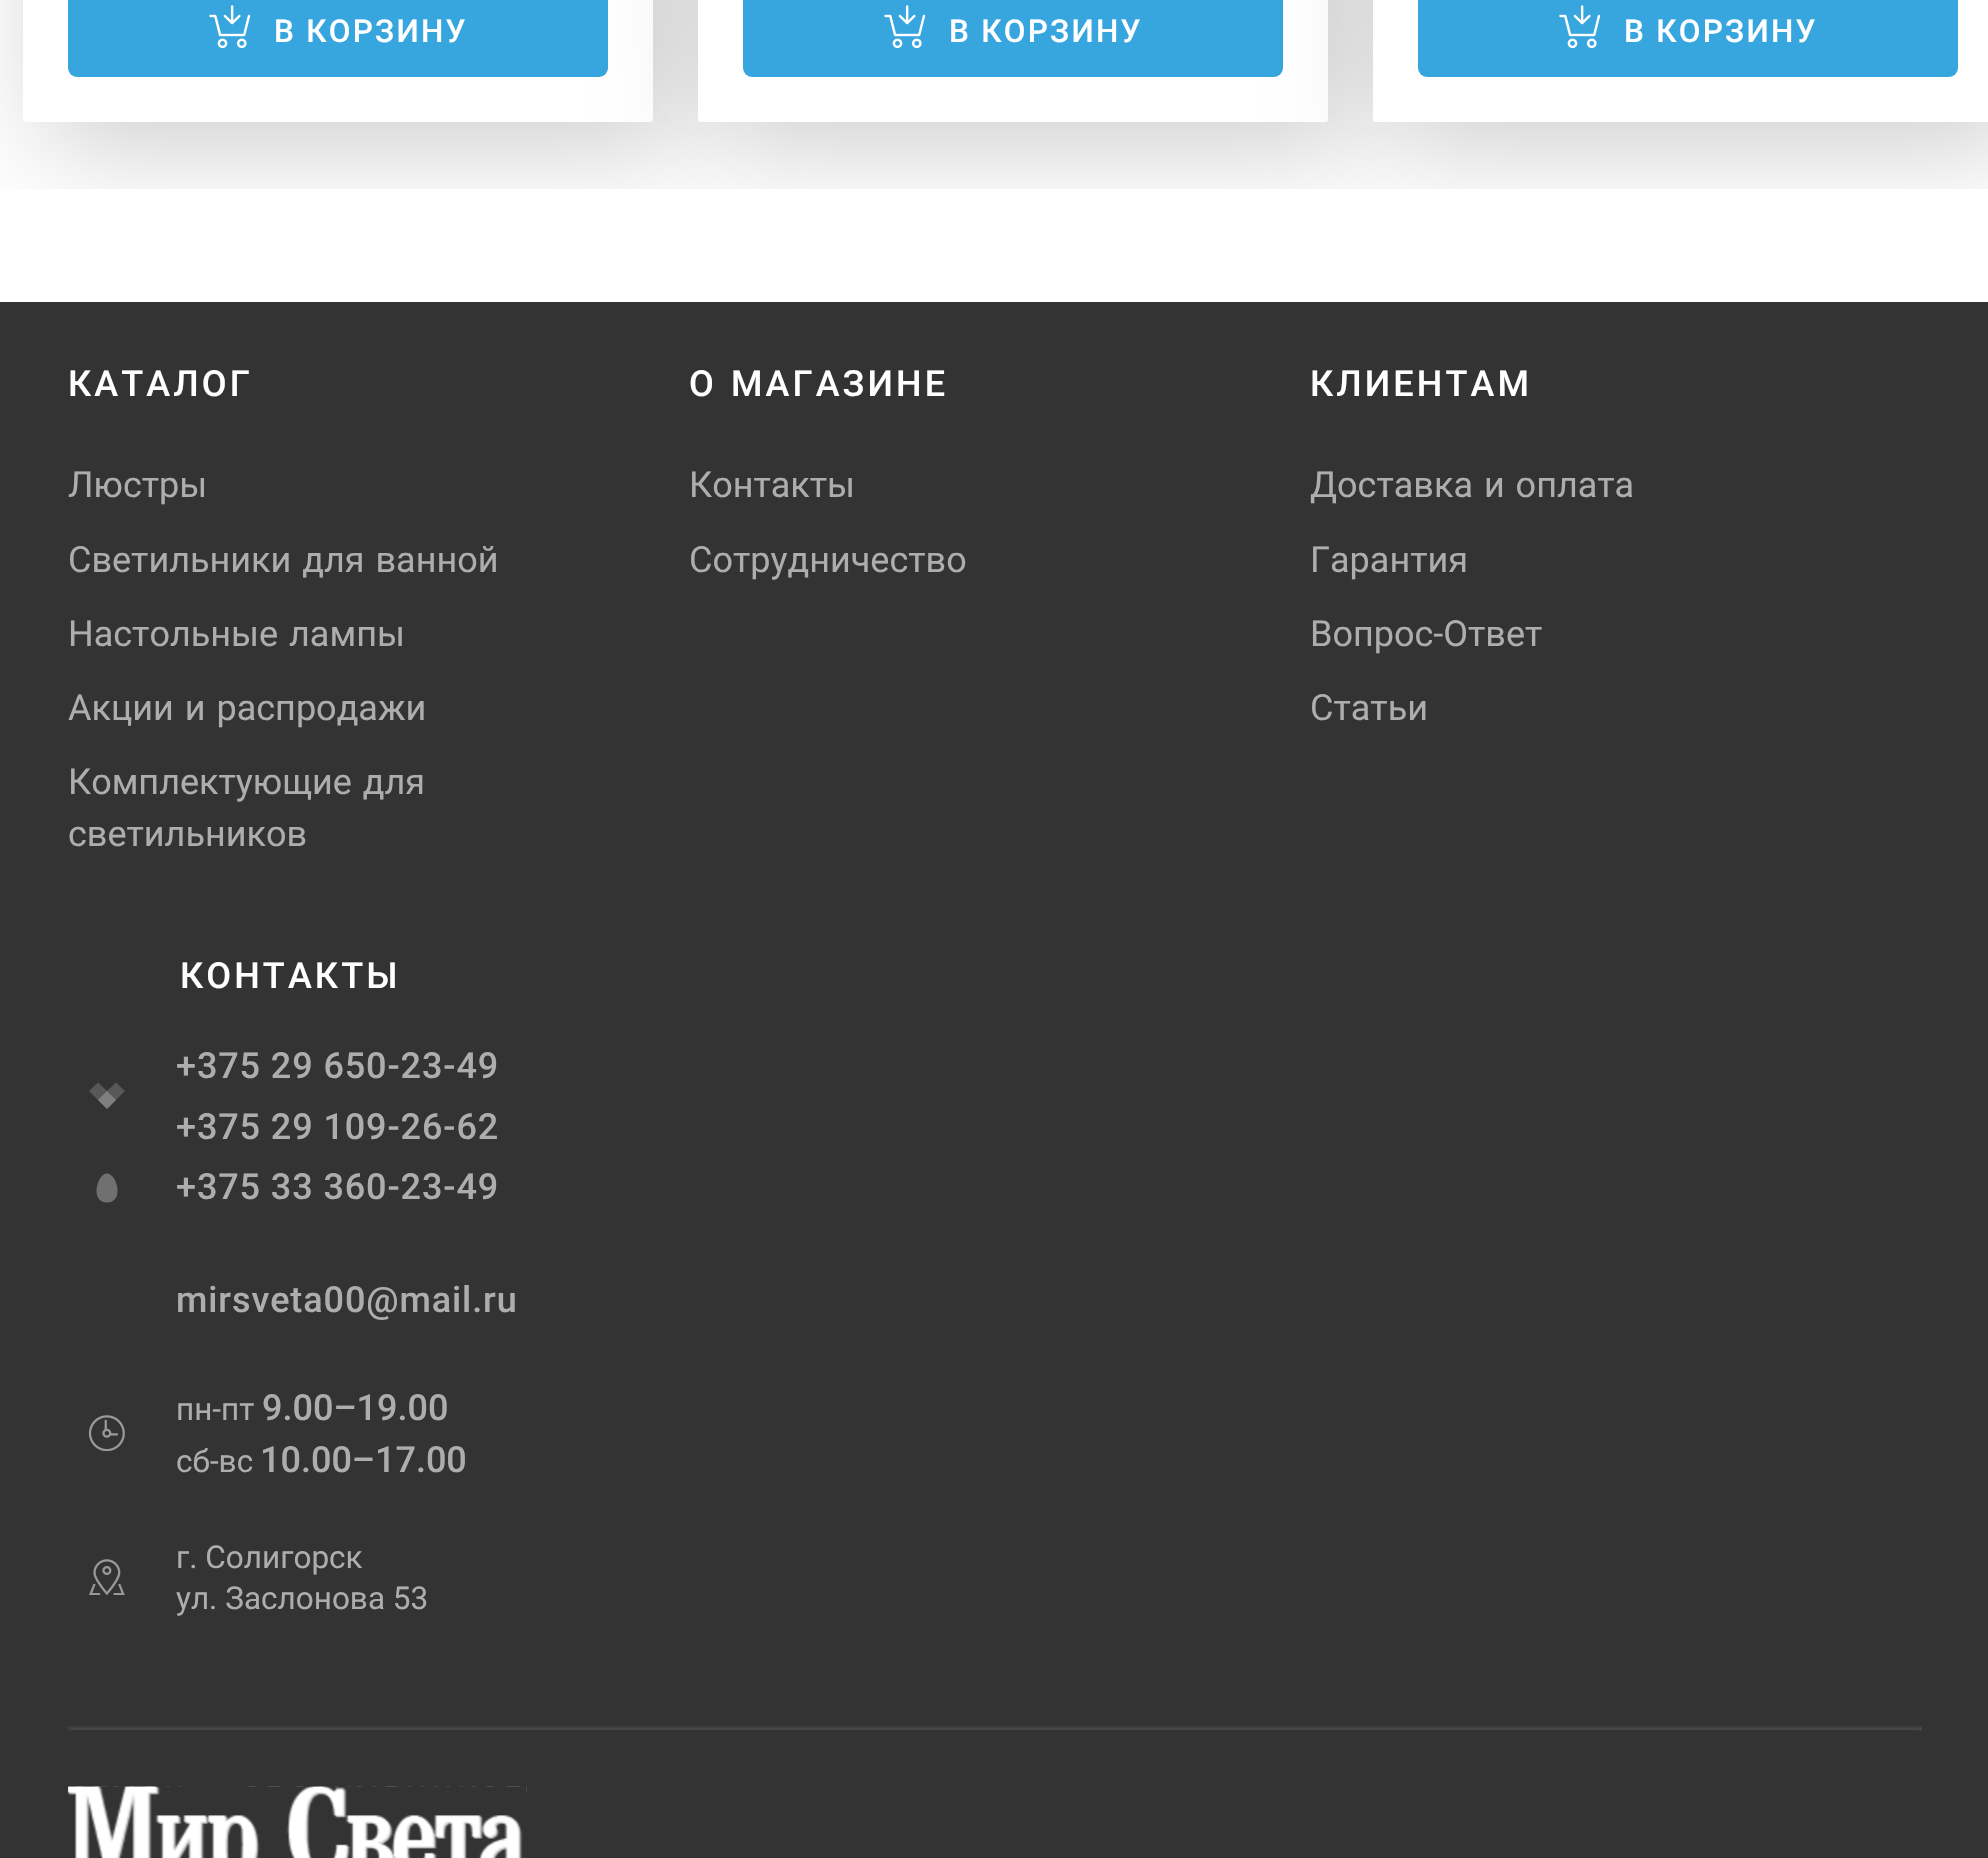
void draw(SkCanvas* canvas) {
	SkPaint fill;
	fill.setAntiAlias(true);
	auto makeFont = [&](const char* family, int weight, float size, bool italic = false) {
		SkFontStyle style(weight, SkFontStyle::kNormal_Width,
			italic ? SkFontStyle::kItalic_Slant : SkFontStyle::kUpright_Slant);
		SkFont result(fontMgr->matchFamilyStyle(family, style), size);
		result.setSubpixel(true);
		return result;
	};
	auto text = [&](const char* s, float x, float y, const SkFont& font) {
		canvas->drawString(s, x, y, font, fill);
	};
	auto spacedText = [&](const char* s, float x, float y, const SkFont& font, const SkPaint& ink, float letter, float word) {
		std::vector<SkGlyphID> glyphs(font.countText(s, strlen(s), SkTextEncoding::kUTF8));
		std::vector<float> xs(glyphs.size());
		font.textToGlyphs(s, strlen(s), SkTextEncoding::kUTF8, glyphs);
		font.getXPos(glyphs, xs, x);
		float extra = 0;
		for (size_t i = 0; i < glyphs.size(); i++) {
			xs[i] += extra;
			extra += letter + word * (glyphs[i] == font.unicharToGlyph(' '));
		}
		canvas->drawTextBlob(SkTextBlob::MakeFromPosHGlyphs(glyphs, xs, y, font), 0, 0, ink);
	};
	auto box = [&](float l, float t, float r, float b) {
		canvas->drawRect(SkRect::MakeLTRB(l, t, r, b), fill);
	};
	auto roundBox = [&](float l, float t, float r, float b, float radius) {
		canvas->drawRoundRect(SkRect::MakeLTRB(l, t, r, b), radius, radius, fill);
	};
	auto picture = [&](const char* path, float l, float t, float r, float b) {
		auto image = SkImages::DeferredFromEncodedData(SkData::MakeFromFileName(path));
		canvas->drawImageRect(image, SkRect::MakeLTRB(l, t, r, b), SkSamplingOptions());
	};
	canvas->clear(0xFFFFFFFF);
	fill.setColor(0xFF333333);
	box(0, 302, 1988, 1858);
	canvas->save();
	canvas->clipRect(SkRect::MakeLTRB(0, 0, 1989, 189));
	fill.setColor(0x33000000);
	fill.setMaskFilter(SkMaskFilter::MakeBlur(kNormal_SkBlurStyle, 56));
	canvas->drawRoundRect(SkRect::MakeLTRB(45, -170, 675, 144), 2, 2, fill);
	fill.setMaskFilter(nullptr);
	canvas->restore();
	fill.setColor(0xFFFFFFFF);
	roundBox(23, -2, 653, 122, 2);
	fill.setColor(0xFF37A6DE);
	roundBox(68, -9, 608, 77, 9);
	picture("image0.png", 209, 5, 251, 49);
	canvas->save();
	canvas->clipRect(SkRect::MakeLTRB(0, 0, 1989, 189));
	fill.setColor(0x33000000);
	fill.setMaskFilter(SkMaskFilter::MakeBlur(kNormal_SkBlurStyle, 56));
	canvas->drawRoundRect(SkRect::MakeLTRB(720, -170, 1350, 144), 2, 2, fill);
	fill.setMaskFilter(nullptr);
	canvas->restore();
	fill.setColor(0xFFFFFFFF);
	roundBox(698, -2, 1328, 122, 2);
	fill.setColor(0xFF37A6DE);
	roundBox(743, -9, 1283, 77, 9);
	picture("image0.png", 884, 5, 926, 49);
	canvas->save();
	canvas->clipRect(SkRect::MakeLTRB(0, 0, 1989, 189));
	fill.setColor(0x33000000);
	fill.setMaskFilter(SkMaskFilter::MakeBlur(kNormal_SkBlurStyle, 56));
	canvas->drawRoundRect(SkRect::MakeLTRB(1395, -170, 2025, 144), 2, 2, fill);
	fill.setMaskFilter(nullptr);
	canvas->restore();
	fill.setColor(0xFFFFFFFF);
	canvas->drawPath(SkPathBuilder().moveTo(1375, -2).lineTo(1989, -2).lineTo(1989, 122).lineTo(1375, 122).cubicTo(1374, 122, 1373, 121, 1373, 120).lineTo(1373, 0).cubicTo(1373, -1, 1374, -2, 1375, -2).close().detach(), fill);
	fill.setColor(0xFF37A6DE);
	roundBox(1418, -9, 1958, 77, 9);
	picture("image0.png", 1559, 5, 1601, 49);
	fill.setColor(0xFF585858);
	canvas->drawPath(SkPathBuilder().moveTo(116, 1082.5f).lineTo(125, 1091).lineTo(107, 1109).lineTo(89, 1091).lineTo(98, 1082.5f).lineTo(107, 1091).close().detach(), fill);
	fill.setColor(0x99999999);
	canvas->drawPath(SkPathBuilder().moveTo(107, 1091).lineTo(98, 1100).lineTo(107, 1109).lineTo(116, 1100).close().detach(), fill);
	fill.setColor(0xFF707070);
	canvas->drawPath(SkPathBuilder().moveTo(107, 1173.5f).cubicTo(117, 1173.5f, 124.5f, 1202.5f, 107, 1202.5f).cubicTo(89.5f, 1202.5f, 97, 1173.5f, 107, 1173.5f).close().detach(), fill);
	picture("image1.png", 88, 1415, 125, 1451);
	picture("image2.png", 89, 1559, 125, 1595);
	fill.setColor(0xFF3E3E3E);
	box(68, 1726, 1922, 1728);
	fill.setColor(0xFF464646);
	box(1919, 1726, 1921, 1731);
	box(68, 1728, 1922, 1730);
	fill.setColor(0xFF3E3E3E);
	box(68, 1726, 70, 1731);
	picture("image3.png", 68, 1786, 527, 1858);
	auto font1 = makeFont("Roboto", 500, 31.5f);
	fill.setColor(0xFFFFFFFF);
	spacedText("В КОРЗИНУ", 274, 42, font1, fill, 2.25f, 0);
	spacedText("В КОРЗИНУ", 949, 42, font1, fill, 2.25f, 0);
	spacedText("В КОРЗИНУ", 1624, 42, font1, fill, 2.25f, 0);
	auto font2 = makeFont("Roboto", 500, 36);
	spacedText("КАТАЛОГ", 68, 396, font2, fill, 3.1f, 0);
	auto font3 = makeFont("Roboto", 400, 36);
	fill.setColor(0xFFADADAD);
	text("Люстры", 68, 497, font3);
	spacedText("Светильники для ванной", 68, 572, font3, fill, 0, 2);
	spacedText("Настольные лампы", 68, 646, font3, fill, 0, 2);
	spacedText("Акции и распродажи", 68, 720, font3, fill, 0, 2);
	spacedText("Комплектующие для", 68, 794, font3, fill, 0, 2);
	text("светильников", 68, 846, font3);
	fill.setColor(0xFFFFFFFF);
	spacedText("О МАГАЗИНЕ", 689, 396, font2, fill, 3.1f, 2);
	fill.setColor(0xFFADADAD);
	text("Контакты", 689, 497, font3);
	text("Сотрудничество", 689, 572, font3);
	fill.setColor(0xFFFFFFFF);
	spacedText("КЛИЕНТАМ", 1310, 396, font2, fill, 3.1f, 0);
	fill.setColor(0xFFADADAD);
	spacedText("Доставка и оплата", 1310, 497, font3, fill, 0, 2);
	text("Гарантия", 1310, 572, font3);
	text("Вопрос-Ответ", 1310, 646, font3);
	text("Статьи", 1310, 720, font3);
	fill.setColor(0xFFFFFFFF);
	spacedText("КОНТАКТЫ", 180, 988, font2, fill, 3.1f, 0);
	fill.setColor(0xFFADADAD);
	spacedText("+375 29 650-23-49", 176, 1078, font2, fill, 0.9f, 0);
	spacedText("+375 29 109-26-62", 176, 1139, font2, fill, 0.9f, 0);
	spacedText("+375 33 360-23-49", 176, 1199, font2, fill, 0.9f, 0);
	spacedText("mirsveta00@mail.ru", 176, 1312, font2, fill, 0.9f, 0);
	auto font4 = makeFont("Roboto", 400, 31.5f);
	text("пн-пт", 176, 1420, font4);
	text("9.00–19.00", 262, 1420, font2);
	text("сб-вс", 176, 1472, font4);
	text("10.00–17.00", 260, 1472, font2);
	text("г. Солигорск", 176, 1568, font4);
	text("ул. Заслонова 53", 176, 1609, font4);
}
